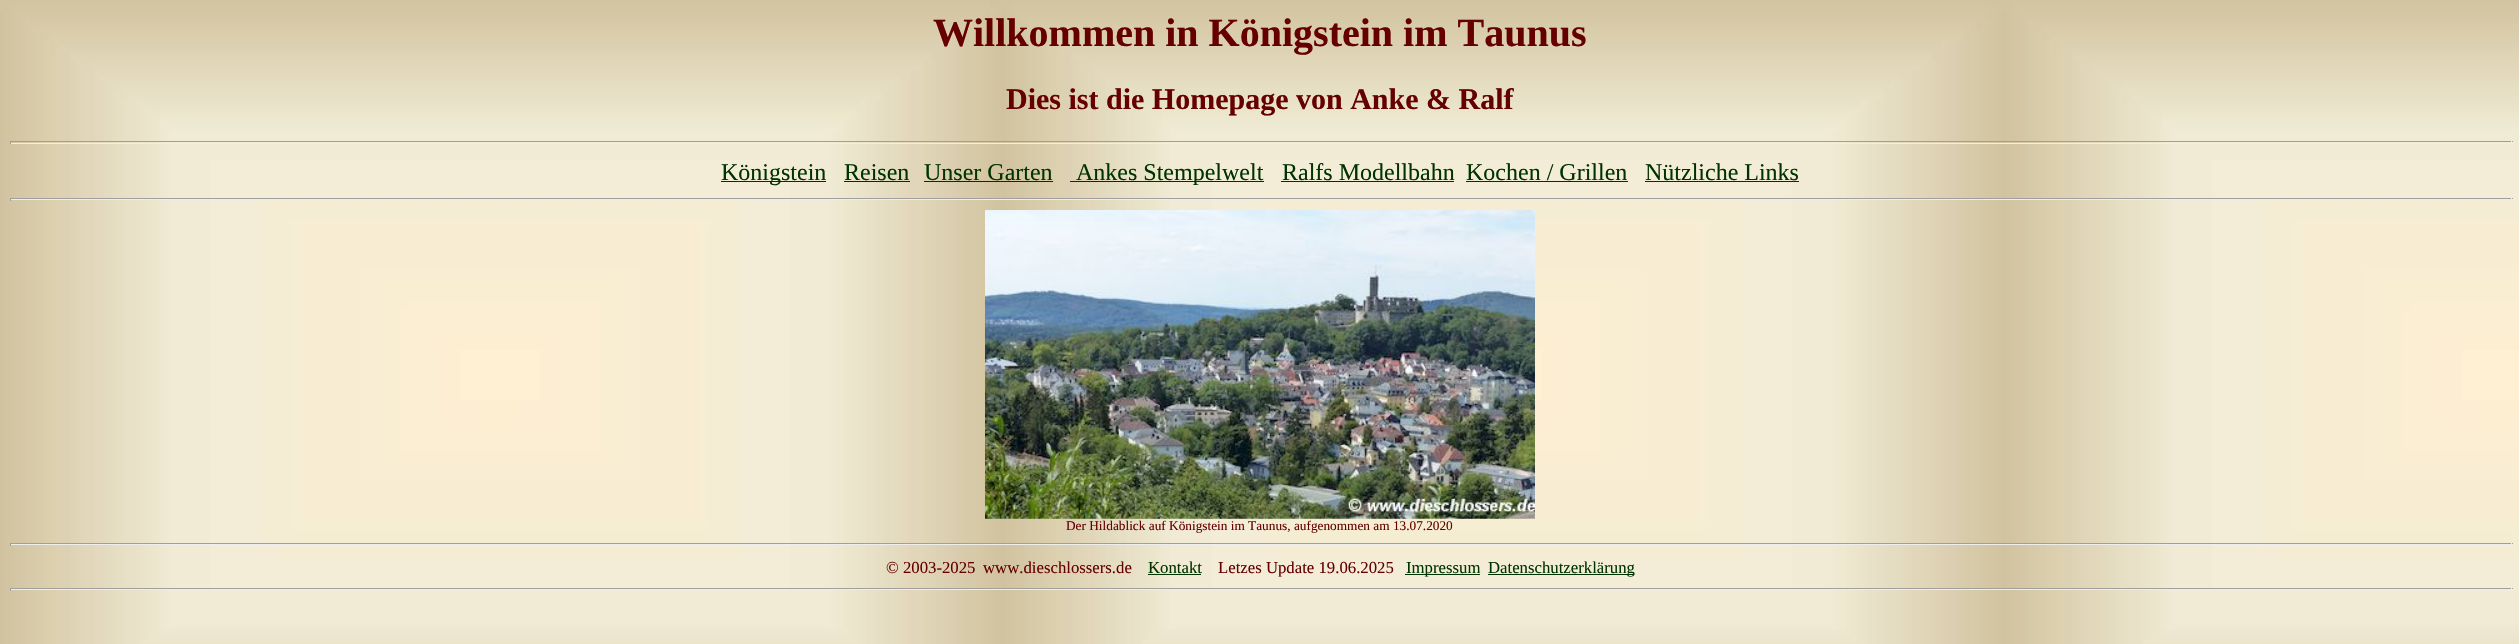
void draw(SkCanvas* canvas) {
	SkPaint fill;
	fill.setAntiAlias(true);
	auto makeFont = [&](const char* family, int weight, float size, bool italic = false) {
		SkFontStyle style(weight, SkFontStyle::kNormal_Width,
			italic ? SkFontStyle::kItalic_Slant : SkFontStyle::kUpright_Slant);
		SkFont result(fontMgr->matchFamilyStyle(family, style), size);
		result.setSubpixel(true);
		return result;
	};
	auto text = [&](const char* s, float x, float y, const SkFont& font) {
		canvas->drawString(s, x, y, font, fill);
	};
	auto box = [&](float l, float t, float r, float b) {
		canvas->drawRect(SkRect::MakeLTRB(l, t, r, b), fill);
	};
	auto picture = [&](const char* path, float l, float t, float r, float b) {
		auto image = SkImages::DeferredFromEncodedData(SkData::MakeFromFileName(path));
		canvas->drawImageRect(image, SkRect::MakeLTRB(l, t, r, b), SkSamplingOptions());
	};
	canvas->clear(0xFFFFFFFF);
	picture("image0.png", 0, 0, 2519, 644);
	fill.setColor(0xFF9F9F9F);
	box(10, 141, 2513, 142);
	fill.setColor(0xFFEEEEEE);
	box(2511, 141, 2512, 144);
	box(10, 143, 2513, 144);
	fill.setColor(0xFF9F9F9F);
	box(10, 141, 11, 144);
	fill.setColor(0xFF003300);
	box(721, 181, 826, 182);
	box(844, 181, 910, 182);
	box(924, 181, 1053, 182);
	box(1070, 181, 1264, 182);
	box(1281, 181, 1454, 182);
	box(1466, 181, 1628, 182);
	box(1645, 181, 1799, 182);
	fill.setColor(0xFF9F9F9F);
	box(10, 198, 2513, 199);
	fill.setColor(0xFFEEEEEE);
	box(2511, 198, 2512, 201);
	box(10, 199, 2513, 200);
	fill.setColor(0xFF9F9F9F);
	box(10, 198, 11, 201);
	picture("image1.png", 985, 210, 1535, 519);
	box(10, 543, 2513, 544);
	fill.setColor(0xFFEEEEEE);
	box(2511, 543, 2512, 546);
	box(10, 544, 2513, 545);
	fill.setColor(0xFF9F9F9F);
	box(10, 543, 11, 546);
	fill.setColor(0xFF003300);
	box(1148, 574, 1201, 575);
	box(1405, 574, 1480, 575);
	box(1488, 574, 1634, 575);
	fill.setColor(0xFF9F9F9F);
	box(10, 588, 2513, 589);
	fill.setColor(0xFFEEEEEE);
	box(2511, 588, 2512, 591);
	box(10, 589, 2513, 590);
	fill.setColor(0xFF9F9F9F);
	box(10, 588, 11, 591);
	auto font1 = makeFont("Liberation Serif", 700, 40);
	fill.setColor(0xFF660000);
	text("Willkommen in Königstein im Taunus", 933, 46, font1);
	auto font2 = makeFont("Liberation Serif", 700, 30);
	text("Dies ist die Homepage von Anke & Ralf", 1006, 109, font2);
	auto font3 = makeFont("Liberation Serif", 400, 24);
	fill.setColor(0xFF003300);
	text("Königstein", 721, 180, font3);
	text("Reisen", 844, 180, font3);
	text("Unser Garten", 924, 180, font3);
	text("Ankes Stempelwelt", 1076, 180, font3);
	text("Ralfs Modellbahn", 1282, 180, font3);
	text("Kochen / Grillen", 1466, 180, font3);
	text("Nützliche Links", 1645, 180, font3);
	auto font4 = makeFont("Liberation Serif", 400, 13.3f);
	fill.setColor(0xFF660000);
	text("Der Hildablick auf Königstein im Taunus, aufgenommen am 13.07.2020", 1066, 530, font4);
	auto font5 = makeFont("Liberation Serif", 400, 16.75f);
	text("© 2003-2025", 886, 573, font5);
	text("www.dieschlossers.de", 983, 573, font5);
	fill.setColor(0xFF003300);
	text("Kontakt", 1148, 573, font5);
	fill.setColor(0xFF660000);
	text("Letzes Update 19.06.2025", 1218, 573, font5);
	fill.setColor(0xFF003300);
	text("Impressum", 1406, 573, font5);
	text("Datenschutzerklärung", 1488, 573, font5);
}
